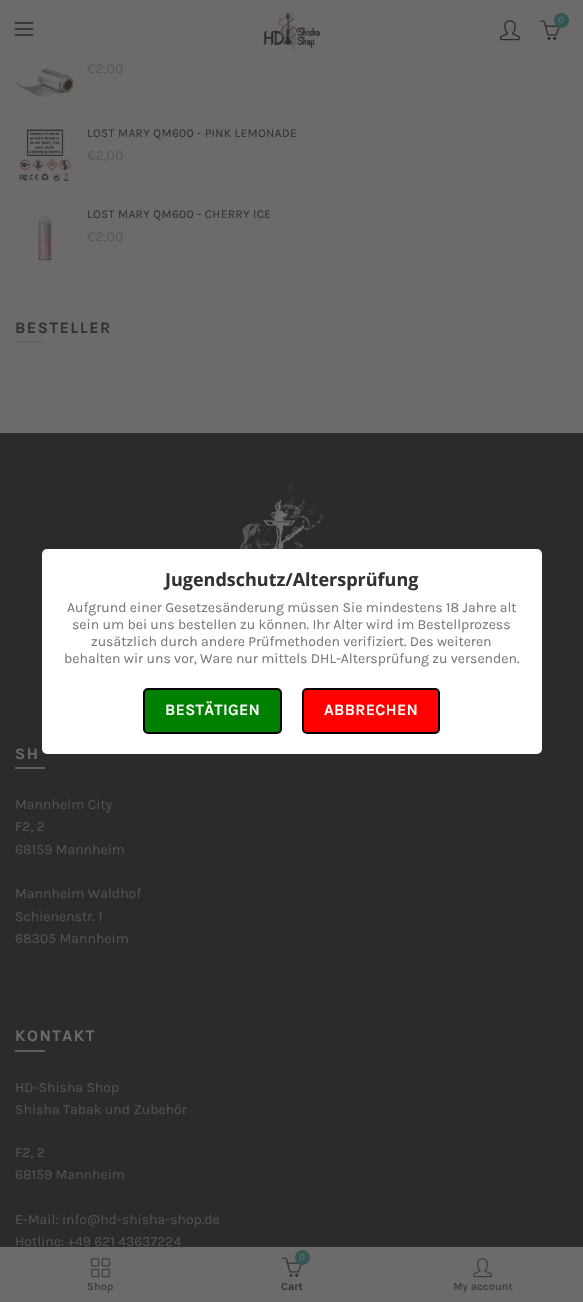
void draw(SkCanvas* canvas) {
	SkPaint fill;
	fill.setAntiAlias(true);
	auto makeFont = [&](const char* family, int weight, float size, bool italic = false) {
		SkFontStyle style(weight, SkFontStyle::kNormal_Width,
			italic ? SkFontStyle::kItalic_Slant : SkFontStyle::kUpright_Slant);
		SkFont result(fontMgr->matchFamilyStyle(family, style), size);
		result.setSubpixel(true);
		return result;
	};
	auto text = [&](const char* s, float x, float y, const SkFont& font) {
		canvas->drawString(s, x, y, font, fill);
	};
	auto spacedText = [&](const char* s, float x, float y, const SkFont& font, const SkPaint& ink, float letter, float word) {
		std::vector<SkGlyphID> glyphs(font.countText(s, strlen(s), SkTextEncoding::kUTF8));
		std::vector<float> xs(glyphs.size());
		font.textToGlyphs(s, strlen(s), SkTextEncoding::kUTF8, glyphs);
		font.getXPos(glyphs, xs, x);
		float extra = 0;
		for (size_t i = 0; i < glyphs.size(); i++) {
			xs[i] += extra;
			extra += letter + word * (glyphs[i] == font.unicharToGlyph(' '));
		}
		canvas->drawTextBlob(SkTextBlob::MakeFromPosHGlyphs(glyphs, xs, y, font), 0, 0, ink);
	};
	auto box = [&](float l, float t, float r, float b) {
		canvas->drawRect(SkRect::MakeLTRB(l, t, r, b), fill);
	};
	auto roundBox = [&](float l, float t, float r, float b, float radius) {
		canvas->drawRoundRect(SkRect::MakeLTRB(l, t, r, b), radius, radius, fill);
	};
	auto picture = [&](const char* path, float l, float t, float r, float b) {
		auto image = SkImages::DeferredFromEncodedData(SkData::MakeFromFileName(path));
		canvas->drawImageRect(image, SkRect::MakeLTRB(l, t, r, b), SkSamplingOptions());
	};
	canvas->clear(0xFF6C6A6A);
	picture("image0.png", 263, 10, 320, 50);
	picture("image1.png", 500, 20, 520, 41);
	picture("image2.png", 540, 20, 560, 40);
	fill.setColor(0xFF335553);
	canvas->drawCircle(561.5f, 20.5f, 7.5f, fill);
	fill.setColor(0xFF393737);
	box(15, 28, 33, 30);
	box(15, 22, 33, 24);
	box(15, 34, 33, 36);
	fill.setColor(0xFF676565);
	box(15, 115, 568, 116);
	picture("image3.png", 16, 68, 74, 97);
	box(15, 196, 568, 197);
	picture("image4.png", 19, 129, 71, 181);
	picture("image5.png", 38, 216, 53, 262);
	fill.setColor(0xFF666464);
	box(15, 341, 45, 343);
	fill.setColor(0xFF2C2A2A);
	box(0, 433, 583, 1247);
	picture("image6.png", 240, 483, 323, 549);
	fill.setColor(0xFF5F5D5D);
	box(15, 767, 45, 769);
	box(15, 1050, 45, 1052);
	fill.setColor(0xFFFFFFFF);
	roundBox(42, 549, 542, 754, 5);
	fill.setColor(0xFF008000);
	canvas->drawRoundRect(SkRect::MakeLTRB(144, 689, 281, 733), 4, 4, fill);
	fill.setStyle(SkPaint::kStroke_Style);
	fill.setStrokeWidth(2);
	fill.setColor(0xFF000000);
	canvas->drawRoundRect(SkRect::MakeLTRB(144, 689, 281, 733), 4, 4, fill);
	fill.setStyle(SkPaint::kFill_Style);
	fill.setColor(0xFFFF0000);
	canvas->drawRoundRect(SkRect::MakeLTRB(303, 689, 439, 733), 4, 4, fill);
	fill.setStyle(SkPaint::kStroke_Style);
	fill.setColor(0xFF000000);
	canvas->drawRoundRect(SkRect::MakeLTRB(303, 689, 439, 733), 4, 4, fill);
	picture("image7.png", 91, 1258, 110, 1278);
	picture("image8.png", 282, 1257, 302, 1277);
	fill.setStyle(SkPaint::kFill_Style);
	fill.setColor(0xFF335553);
	canvas->drawCircle(302.5f, 1257.5f, 7.5f, fill);
	picture("image9.png", 473, 1258, 492, 1278);
	auto font1 = makeFont("Karla", 400, 10);
	fill.setColor(0xFF6C6A6A);
	text("0", 558, 23, font1);
	auto font2 = makeFont("Karla", 400, 14);
	fill.setColor(0xFF585656);
	text("€2,00", 87, 73, font2);
	auto font3 = makeFont("Karla", 400, 12);
	fill.setColor(0xFF333131);
	spacedText("LOST MARY QM600 - PINK LEMONADE", 87, 137, font3, fill, 0.3f, 0);
	fill.setColor(0xFF585656);
	text("€2,00", 87, 160, font2);
	fill.setColor(0xFF333131);
	spacedText("LOST MARY QM600 - CHERRY ICE", 87, 218, font3, fill, 0.3f, 0);
	fill.setColor(0xFF585656);
	text("€2,00", 87, 241, font2);
	auto font4 = makeFont("Karla", 700, 16);
	fill.setColor(0xFF333131);
	spacedText("BESTELLER", 15, 333, font4, fill, 1.5f, 0);
	fill.setColor(0xFF6C6A6A);
	spacedText("SH", 15, 759, font4, fill, 1.5f, 0);
	fill.setColor(0xFF525050);
	text("Mannheim City", 15, 809, font2);
	text("F2, 2", 15, 831, font2);
	text("68159 Mannheim", 15, 854, font2);
	text("Mannheim Waldhof", 15, 898, font2);
	text("Schienenstr. 1", 15, 921, font2);
	text("68305 Mannheim", 15, 943, font2);
	fill.setColor(0xFF6C6A6A);
	spacedText("KONTAKT", 15, 1041, font4, fill, 1.5f, 0);
	fill.setColor(0xFF525050);
	text("HD-Shisha Shop", 15, 1092, font2);
	text("Shisha Tabak und Zubehör", 15, 1114, font2);
	text("F2, 2", 15, 1157, font2);
	text("68159 Mannheim", 15, 1179, font2);
	text("E-Mail: info@hd-shisha-shop.de", 15, 1224, font2);
	text("Hotline: +49 621 43637224", 15, 1246, font2);
	auto font5 = makeFont("Open Sans", 700, 18);
	fill.setColor(0xFF333131);
	text("Jugendschutz/Altersprüfung", 165, 586, font5);
	fill.setColor(0xFF787878);
	text("Aufgrund einer Gesetzesänderung müssen Sie mindestens 18 Jahre alt", 67, 612, font2);
	text("sein um bei uns bestellen zu können. Ihr Alter wird im Bestellprozess", 72, 629, font2);
	text("zusätzlich durch andere Prüfmethoden verifiziert. Des weiteren", 91, 646, font2);
	text("behalten wir uns vor, Ware nur mittels DHL-Altersprüfung zu versenden.", 64, 663, font2);
	auto font6 = makeFont("Karla", 600, 16);
	fill.setColor(0xFFFFFFFF);
	spacedText("BESTÄTIGEN", 165, 715, font6, fill, 0.3f, 0);
	spacedText("ABBRECHEN", 324, 715, font6, fill, 0.3f, 0);
	auto font7 = makeFont("Karla", 600, 11);
	fill.setColor(0xFF3F3D3D);
	text("Shop", 87, 1290, font7);
	fill.setColor(0xFF6C6A6A);
	text("0", 299, 1260, font1);
	fill.setColor(0xFF333131);
	text("Cart", 281, 1290, font7);
	canvas->save();
	canvas->clipRect(SkRect::MakeLTRB(397, 1281, 568, 1292));
	fill.setColor(0xFF3F3D3D);
	text("My account", 453, 1290, font7);
	canvas->restore();
}
